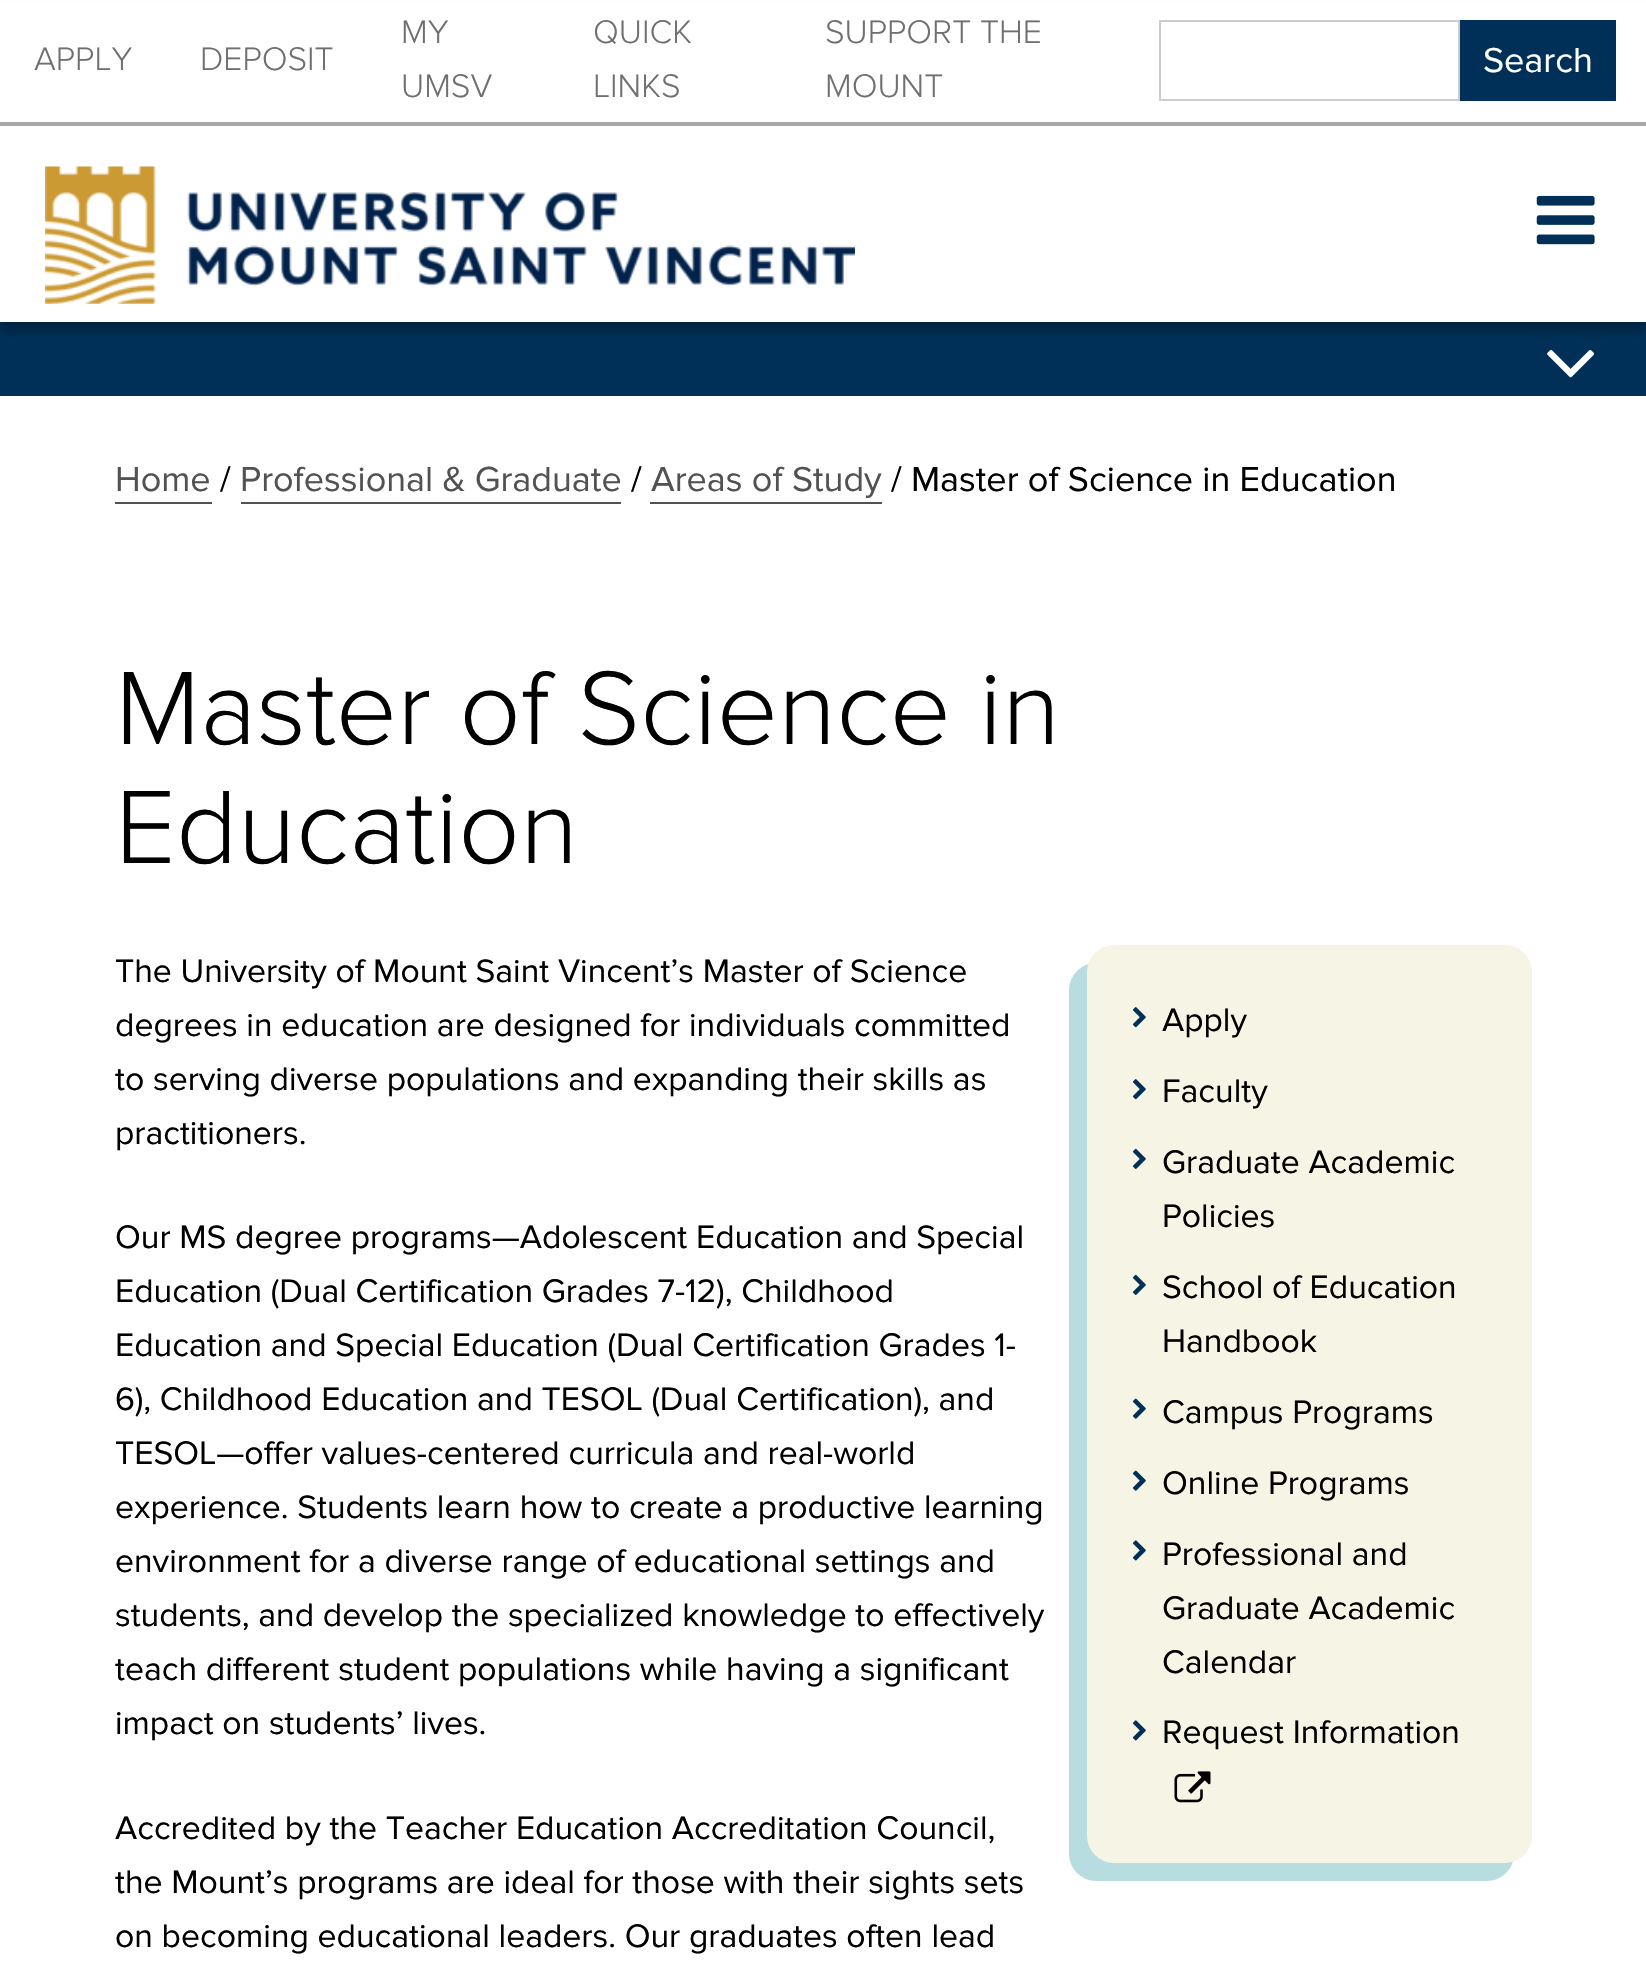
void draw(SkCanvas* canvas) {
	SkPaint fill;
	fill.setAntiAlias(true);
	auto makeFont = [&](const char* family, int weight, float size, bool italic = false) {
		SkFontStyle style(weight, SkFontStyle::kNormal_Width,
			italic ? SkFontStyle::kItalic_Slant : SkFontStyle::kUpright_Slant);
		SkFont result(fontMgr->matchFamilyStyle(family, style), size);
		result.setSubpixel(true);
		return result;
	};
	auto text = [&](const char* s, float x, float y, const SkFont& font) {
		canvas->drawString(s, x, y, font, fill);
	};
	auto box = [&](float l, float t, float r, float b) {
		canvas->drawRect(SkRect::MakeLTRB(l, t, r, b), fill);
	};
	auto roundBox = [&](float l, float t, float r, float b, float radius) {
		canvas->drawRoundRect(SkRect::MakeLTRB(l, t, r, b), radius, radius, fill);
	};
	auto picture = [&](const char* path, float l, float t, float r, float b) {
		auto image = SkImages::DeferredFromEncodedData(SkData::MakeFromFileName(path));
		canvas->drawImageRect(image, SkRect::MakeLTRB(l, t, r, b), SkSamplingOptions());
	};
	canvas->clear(0xFFFFFFFF);
	fill.setColor(0xFF003057);
	box(0, 322, 1646, 396);
	fill.setColor(0x40000000);
	fill.setMaskFilter(SkMaskFilter::MakeBlur(kNormal_SkBlurStyle, 4.5f));
	canvas->drawRect(SkRect::MakeLTRB(0, 9, 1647, 331), fill);
	fill.setMaskFilter(nullptr);
	fill.setColor(0xFFFFFFFF);
	box(0, 1, 1646, 122);
	fill.setColor(0xFFA7A8AA);
	box(0, 122, 1646, 126);
	fill.setStyle(SkPaint::kStroke_Style);
	fill.setStrokeWidth(2);
	fill.setColor(0xFFCCCCCC);
	canvas->drawRect(SkRect::MakeLTRB(1160, 21, 1459, 100), fill);
	fill.setStyle(SkPaint::kFill_Style);
	fill.setColor(0xFF003057);
	box(1460, 20, 1616, 101);
	fill.setColor(0xFFFFFFFF);
	box(0, 126, 1646, 322);
	picture("image0.png", 45, 166, 855, 304);
	picture("image1.png", 1536, 195, 1595, 245);
	picture("image2.png", 1547, 349, 1595, 378);
	fill.setColor(0xFF535251);
	box(115, 502, 212, 504);
	box(241, 502, 621, 504);
	box(650, 502, 882, 504);
	fill.setColor(0xFFB8DDE1);
	roundBox(1069, 963, 1514, 1881, 27);
	fill.setColor(0xFFF6F4E4);
	roundBox(1087, 945, 1532, 1863, 27);
	picture("image3.png", 1132, 1007, 1146, 1028);
	picture("image3.png", 1132, 1079, 1146, 1100);
	picture("image4.png", 1132, 1148, 1146, 1169);
	picture("image4.png", 1132, 1274, 1146, 1295);
	picture("image5.png", 1132, 1398, 1146, 1419);
	picture("image5.png", 1132, 1470, 1146, 1491);
	picture("image6.png", 1132, 1540, 1146, 1561);
	picture("image6.png", 1132, 1720, 1146, 1741);
	picture("image7.png", 1174, 1771, 1211, 1803);
	auto font1 = makeFont("Proxima Nova", 300, 33.75f);
	fill.setColor(0xFF6F706E);
	text("APPLY", 34, 70, font1);
	text("DEPOSIT", 200, 70, font1);
	text("MY", 401, 43, font1);
	text("UMSV", 401, 97, font1);
	text("QUICK", 593, 43, font1);
	text("LINKS", 593, 97, font1);
	text("SUPPORT THE", 825, 43, font1);
	text("MOUNT", 825, 97, font1);
	auto font2 = makeFont("Proxima Nova", 400, 36);
	fill.setColor(0xFFFFFFFF);
	text("Search", 1483, 72, font2);
	fill.setColor(0xFF535251);
	text("Home", 115, 491, font2);
	fill.setColor(0xFF000000);
	text("/", 220, 491, font2);
	fill.setColor(0xFF535251);
	text("Professional & Graduate", 240, 491, font2);
	fill.setColor(0xFF000000);
	text("/", 631, 491, font2);
	fill.setColor(0xFF535251);
	text("Areas of Study", 651, 491, font2);
	fill.setColor(0xFF000000);
	text("/ Master of Science in Education", 891, 491, font2);
	auto font3 = makeFont("Proxima Nova", 300, 108);
	text("Master of Science in", 115, 744, font3);
	text("Education", 115, 863, font3);
	auto font4 = makeFont("Proxima Nova", 400, 33.75f);
	text("The University of Mount Saint Vincent’s Master of Science", 115, 982, font4);
	text("degrees in education are designed for individuals committed", 115, 1036, font4);
	text("to serving diverse populations and expanding their skills as", 115, 1090, font4);
	text("practitioners.", 115, 1144, font4);
	text("Our MS degree programs—Adolescent Education and Special", 115, 1248, font4);
	text("Education (Dual Certification Grades 7-12), Childhood", 115, 1302, font4);
	text("Education and Special Education (Dual Certification Grades 1-", 115, 1356, font4);
	text("6), Childhood Education and TESOL (Dual Certification), and", 115, 1410, font4);
	text("TESOL—offer values-centered curricula and real-world", 115, 1464, font4);
	text("experience. Students learn how to create a productive learning", 115, 1518, font4);
	text("environment for a diverse range of educational settings and", 115, 1572, font4);
	text("students, and develop the specialized knowledge to effectively", 115, 1626, font4);
	text("teach different student populations while having a significant", 115, 1680, font4);
	text("impact on students’ lives.", 115, 1734, font4);
	text("Accredited by the Teacher Education Accreditation Council,", 115, 1839, font4);
	text("the Mount’s programs are ideal for those with their sights sets", 115, 1893, font4);
	text("on becoming educational leaders. Our graduates often lead", 115, 1947, font4);
	text("Apply", 1162, 1031, font4);
	text("Faculty", 1162, 1102, font4);
	text("Graduate Academic", 1162, 1173, font4);
	text("Policies", 1162, 1227, font4);
	text("School of Education", 1162, 1298, font4);
	text("Handbook", 1162, 1352, font4);
	text("Campus Programs", 1162, 1423, font4);
	text("Online Programs", 1162, 1494, font4);
	text("Professional and", 1162, 1565, font4);
	text("Graduate Academic", 1162, 1619, font4);
	text("Calendar", 1162, 1673, font4);
	text("Request Information", 1162, 1743, font4);
}
